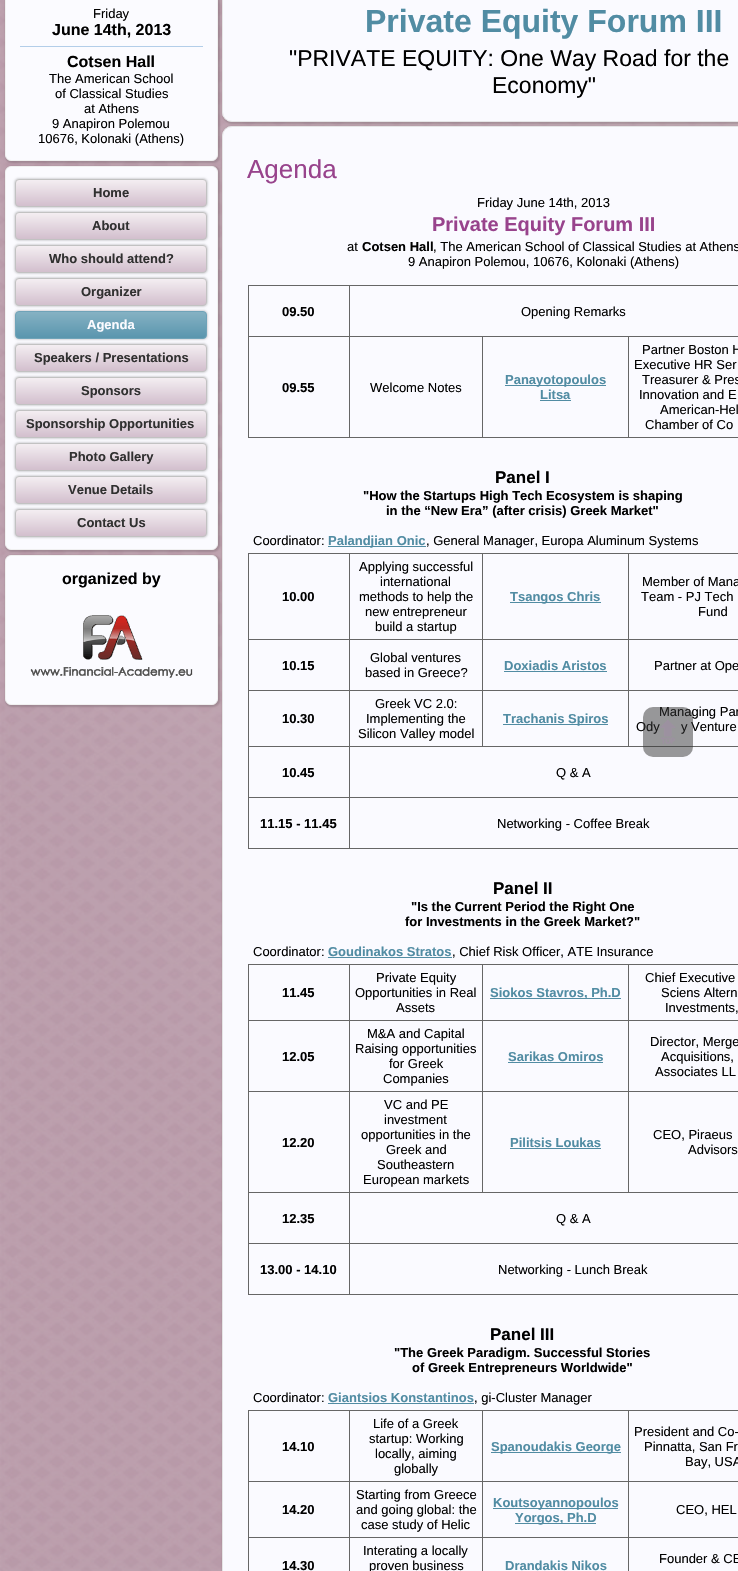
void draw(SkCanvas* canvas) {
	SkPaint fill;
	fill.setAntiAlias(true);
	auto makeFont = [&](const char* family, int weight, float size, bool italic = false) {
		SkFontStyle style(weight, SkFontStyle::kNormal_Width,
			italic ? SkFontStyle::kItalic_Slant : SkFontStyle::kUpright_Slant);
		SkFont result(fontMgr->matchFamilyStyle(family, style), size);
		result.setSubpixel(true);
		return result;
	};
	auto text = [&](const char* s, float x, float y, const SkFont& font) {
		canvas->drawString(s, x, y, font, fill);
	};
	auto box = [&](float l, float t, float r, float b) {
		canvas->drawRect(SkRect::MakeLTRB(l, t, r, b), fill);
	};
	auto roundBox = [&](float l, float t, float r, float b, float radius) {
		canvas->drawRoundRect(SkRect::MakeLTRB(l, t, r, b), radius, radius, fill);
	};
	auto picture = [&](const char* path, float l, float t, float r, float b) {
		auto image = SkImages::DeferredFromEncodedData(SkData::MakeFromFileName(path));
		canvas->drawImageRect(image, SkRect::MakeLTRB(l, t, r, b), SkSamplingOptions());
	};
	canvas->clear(0xFFFFFFFF);
	picture("image0.png", 0, 0, 738, 1571);
	fill.setColor(0x26000000);
	fill.setMaskFilter(SkMaskFilter::MakeBlur(kNormal_SkBlurStyle, 1));
	canvas->drawRoundRect(SkRect::MakeLTRB(5, -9, 220, 163), 7, 7, fill);
	fill.setMaskFilter(nullptr);
	fill.setColor(0xFFFBFBFF);
	canvas->drawRoundRect(SkRect::MakeLTRB(5.5f, -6.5f, 217.5f, 160.5f), 5.5f, 5.5f, fill);
	fill.setStyle(SkPaint::kStroke_Style);
	fill.setStrokeWidth(1);
	fill.setColor(0xFFF0F0F0);
	canvas->drawRoundRect(SkRect::MakeLTRB(5.5f, -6.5f, 217.5f, 160.5f), 5.5f, 5.5f, fill);
	fill.setStyle(SkPaint::kFill_Style);
	fill.setColor(0xFFB3CEE9);
	box(20, 46, 203, 47);
	fill.setColor(0x26000000);
	fill.setMaskFilter(SkMaskFilter::MakeBlur(kNormal_SkBlurStyle, 1));
	canvas->drawRoundRect(SkRect::MakeLTRB(5, 166, 220, 552), 7, 7, fill);
	fill.setMaskFilter(nullptr);
	fill.setColor(0xFFFBFBFF);
	canvas->drawRoundRect(SkRect::MakeLTRB(5.5f, 166.5f, 217.5f, 549.5f), 5.5f, 5.5f, fill);
	fill.setStyle(SkPaint::kStroke_Style);
	fill.setColor(0xFFF0F0F0);
	canvas->drawRoundRect(SkRect::MakeLTRB(5.5f, 166.5f, 217.5f, 549.5f), 5.5f, 5.5f, fill);
	fill.setStyle(SkPaint::kFill_Style);
	fill.setColor(0x26000000);
	fill.setMaskFilter(SkMaskFilter::MakeBlur(kNormal_SkBlurStyle, 1));
	canvas->drawRoundRect(SkRect::MakeLTRB(14, 178, 208, 208), 5, 5, fill);
	fill.setMaskFilter(nullptr);
	{
		const SkColor colors[] = {0xFFF5F0F3, 0xFFD1BDCC};
		const float stops[] = {0, 1};
		const SkPoint ends[] = {{111, 179}, {111, 207}};
		fill.setShader(SkGradientShader::MakeLinear(ends, colors, stops, 2, SkTileMode::kClamp));
		fill.setAlpha(255);
	}
	canvas->drawRoundRect(SkRect::MakeLTRB(15.5f, 179.5f, 206.5f, 206.5f), 3.5f, 3.5f, fill);
	fill.setStyle(SkPaint::kStroke_Style);
	fill.setShader(nullptr);
	fill.setColor(0xFFC2C2C2);
	canvas->drawRoundRect(SkRect::MakeLTRB(15.5f, 179.5f, 206.5f, 206.5f), 3.5f, 3.5f, fill);
	fill.setStyle(SkPaint::kFill_Style);
	fill.setColor(0x26000000);
	fill.setMaskFilter(SkMaskFilter::MakeBlur(kNormal_SkBlurStyle, 1));
	canvas->drawRoundRect(SkRect::MakeLTRB(14, 211, 208, 241), 5, 5, fill);
	fill.setMaskFilter(nullptr);
	{
		const SkColor colors[] = {0xFFF5F0F3, 0xFFD1BDCC};
		const float stops[] = {0, 1};
		const SkPoint ends[] = {{111, 212}, {111, 240}};
		fill.setShader(SkGradientShader::MakeLinear(ends, colors, stops, 2, SkTileMode::kClamp));
		fill.setAlpha(255);
	}
	canvas->drawRoundRect(SkRect::MakeLTRB(15.5f, 212.5f, 206.5f, 239.5f), 3.5f, 3.5f, fill);
	fill.setStyle(SkPaint::kStroke_Style);
	fill.setShader(nullptr);
	fill.setColor(0xFFC2C2C2);
	canvas->drawRoundRect(SkRect::MakeLTRB(15.5f, 212.5f, 206.5f, 239.5f), 3.5f, 3.5f, fill);
	fill.setStyle(SkPaint::kFill_Style);
	fill.setColor(0x26000000);
	fill.setMaskFilter(SkMaskFilter::MakeBlur(kNormal_SkBlurStyle, 1));
	canvas->drawRoundRect(SkRect::MakeLTRB(14, 244, 208, 274), 5, 5, fill);
	fill.setMaskFilter(nullptr);
	{
		const SkColor colors[] = {0xFFF5F0F3, 0xFFD1BDCC};
		const float stops[] = {0, 1};
		const SkPoint ends[] = {{111, 245}, {111, 273}};
		fill.setShader(SkGradientShader::MakeLinear(ends, colors, stops, 2, SkTileMode::kClamp));
		fill.setAlpha(255);
	}
	canvas->drawRoundRect(SkRect::MakeLTRB(15.5f, 245.5f, 206.5f, 272.5f), 3.5f, 3.5f, fill);
	fill.setStyle(SkPaint::kStroke_Style);
	fill.setShader(nullptr);
	fill.setColor(0xFFC2C2C2);
	canvas->drawRoundRect(SkRect::MakeLTRB(15.5f, 245.5f, 206.5f, 272.5f), 3.5f, 3.5f, fill);
	fill.setStyle(SkPaint::kFill_Style);
	fill.setColor(0x26000000);
	fill.setMaskFilter(SkMaskFilter::MakeBlur(kNormal_SkBlurStyle, 1));
	canvas->drawRoundRect(SkRect::MakeLTRB(14, 277, 208, 307), 5, 5, fill);
	fill.setMaskFilter(nullptr);
	{
		const SkColor colors[] = {0xFFF5F0F3, 0xFFD1BDCC};
		const float stops[] = {0, 1};
		const SkPoint ends[] = {{111, 278}, {111, 306}};
		fill.setShader(SkGradientShader::MakeLinear(ends, colors, stops, 2, SkTileMode::kClamp));
		fill.setAlpha(255);
	}
	canvas->drawRoundRect(SkRect::MakeLTRB(15.5f, 278.5f, 206.5f, 305.5f), 3.5f, 3.5f, fill);
	fill.setStyle(SkPaint::kStroke_Style);
	fill.setShader(nullptr);
	fill.setColor(0xFFC2C2C2);
	canvas->drawRoundRect(SkRect::MakeLTRB(15.5f, 278.5f, 206.5f, 305.5f), 3.5f, 3.5f, fill);
	fill.setStyle(SkPaint::kFill_Style);
	fill.setColor(0x26000000);
	fill.setMaskFilter(SkMaskFilter::MakeBlur(kNormal_SkBlurStyle, 1));
	canvas->drawRoundRect(SkRect::MakeLTRB(14, 310, 208, 340), 5, 5, fill);
	fill.setMaskFilter(nullptr);
	{
		const SkColor colors[] = {0xFF87B3C4, 0xFF5894AD};
		const float stops[] = {0, 1};
		const SkPoint ends[] = {{111, 311}, {111, 339}};
		fill.setShader(SkGradientShader::MakeLinear(ends, colors, stops, 2, SkTileMode::kClamp));
		fill.setAlpha(255);
	}
	canvas->drawRoundRect(SkRect::MakeLTRB(15.5f, 311.5f, 206.5f, 338.5f), 3.5f, 3.5f, fill);
	fill.setStyle(SkPaint::kStroke_Style);
	fill.setShader(nullptr);
	fill.setColor(0xFF6FA3B8);
	canvas->drawRoundRect(SkRect::MakeLTRB(15.5f, 311.5f, 206.5f, 338.5f), 3.5f, 3.5f, fill);
	fill.setStyle(SkPaint::kFill_Style);
	fill.setColor(0x26000000);
	fill.setMaskFilter(SkMaskFilter::MakeBlur(kNormal_SkBlurStyle, 1));
	canvas->drawRoundRect(SkRect::MakeLTRB(14, 343, 208, 373), 5, 5, fill);
	fill.setMaskFilter(nullptr);
	{
		const SkColor colors[] = {0xFFF5F0F3, 0xFFD1BDCC};
		const float stops[] = {0, 1};
		const SkPoint ends[] = {{111, 344}, {111, 372}};
		fill.setShader(SkGradientShader::MakeLinear(ends, colors, stops, 2, SkTileMode::kClamp));
		fill.setAlpha(255);
	}
	canvas->drawRoundRect(SkRect::MakeLTRB(15.5f, 344.5f, 206.5f, 371.5f), 3.5f, 3.5f, fill);
	fill.setStyle(SkPaint::kStroke_Style);
	fill.setShader(nullptr);
	fill.setColor(0xFFC2C2C2);
	canvas->drawRoundRect(SkRect::MakeLTRB(15.5f, 344.5f, 206.5f, 371.5f), 3.5f, 3.5f, fill);
	fill.setStyle(SkPaint::kFill_Style);
	fill.setColor(0x26000000);
	fill.setMaskFilter(SkMaskFilter::MakeBlur(kNormal_SkBlurStyle, 1));
	canvas->drawRoundRect(SkRect::MakeLTRB(14, 376, 208, 406), 5, 5, fill);
	fill.setMaskFilter(nullptr);
	{
		const SkColor colors[] = {0xFFF5F0F3, 0xFFD1BDCC};
		const float stops[] = {0, 1};
		const SkPoint ends[] = {{111, 377}, {111, 405}};
		fill.setShader(SkGradientShader::MakeLinear(ends, colors, stops, 2, SkTileMode::kClamp));
		fill.setAlpha(255);
	}
	canvas->drawRoundRect(SkRect::MakeLTRB(15.5f, 377.5f, 206.5f, 404.5f), 3.5f, 3.5f, fill);
	fill.setStyle(SkPaint::kStroke_Style);
	fill.setShader(nullptr);
	fill.setColor(0xFFC2C2C2);
	canvas->drawRoundRect(SkRect::MakeLTRB(15.5f, 377.5f, 206.5f, 404.5f), 3.5f, 3.5f, fill);
	fill.setStyle(SkPaint::kFill_Style);
	fill.setColor(0x26000000);
	fill.setMaskFilter(SkMaskFilter::MakeBlur(kNormal_SkBlurStyle, 1));
	canvas->drawRoundRect(SkRect::MakeLTRB(14, 409, 208, 439), 5, 5, fill);
	fill.setMaskFilter(nullptr);
	{
		const SkColor colors[] = {0xFFF5F0F3, 0xFFD1BDCC};
		const float stops[] = {0, 1};
		const SkPoint ends[] = {{111, 410}, {111, 438}};
		fill.setShader(SkGradientShader::MakeLinear(ends, colors, stops, 2, SkTileMode::kClamp));
		fill.setAlpha(255);
	}
	canvas->drawRoundRect(SkRect::MakeLTRB(15.5f, 410.5f, 206.5f, 437.5f), 3.5f, 3.5f, fill);
	fill.setStyle(SkPaint::kStroke_Style);
	fill.setShader(nullptr);
	fill.setColor(0xFFC2C2C2);
	canvas->drawRoundRect(SkRect::MakeLTRB(15.5f, 410.5f, 206.5f, 437.5f), 3.5f, 3.5f, fill);
	fill.setStyle(SkPaint::kFill_Style);
	fill.setColor(0x26000000);
	fill.setMaskFilter(SkMaskFilter::MakeBlur(kNormal_SkBlurStyle, 1));
	canvas->drawRoundRect(SkRect::MakeLTRB(14, 442, 208, 472), 5, 5, fill);
	fill.setMaskFilter(nullptr);
	{
		const SkColor colors[] = {0xFFF5F0F3, 0xFFD1BDCC};
		const float stops[] = {0, 1};
		const SkPoint ends[] = {{111, 443}, {111, 471}};
		fill.setShader(SkGradientShader::MakeLinear(ends, colors, stops, 2, SkTileMode::kClamp));
		fill.setAlpha(255);
	}
	canvas->drawRoundRect(SkRect::MakeLTRB(15.5f, 443.5f, 206.5f, 470.5f), 3.5f, 3.5f, fill);
	fill.setStyle(SkPaint::kStroke_Style);
	fill.setShader(nullptr);
	fill.setColor(0xFFC2C2C2);
	canvas->drawRoundRect(SkRect::MakeLTRB(15.5f, 443.5f, 206.5f, 470.5f), 3.5f, 3.5f, fill);
	fill.setStyle(SkPaint::kFill_Style);
	fill.setColor(0x26000000);
	fill.setMaskFilter(SkMaskFilter::MakeBlur(kNormal_SkBlurStyle, 1));
	canvas->drawRoundRect(SkRect::MakeLTRB(14, 475, 208, 505), 5, 5, fill);
	fill.setMaskFilter(nullptr);
	{
		const SkColor colors[] = {0xFFF5F0F3, 0xFFD1BDCC};
		const float stops[] = {0, 1};
		const SkPoint ends[] = {{111, 476}, {111, 504}};
		fill.setShader(SkGradientShader::MakeLinear(ends, colors, stops, 2, SkTileMode::kClamp));
		fill.setAlpha(255);
	}
	canvas->drawRoundRect(SkRect::MakeLTRB(15.5f, 476.5f, 206.5f, 503.5f), 3.5f, 3.5f, fill);
	fill.setStyle(SkPaint::kStroke_Style);
	fill.setShader(nullptr);
	fill.setColor(0xFFC2C2C2);
	canvas->drawRoundRect(SkRect::MakeLTRB(15.5f, 476.5f, 206.5f, 503.5f), 3.5f, 3.5f, fill);
	fill.setStyle(SkPaint::kFill_Style);
	fill.setColor(0x26000000);
	fill.setMaskFilter(SkMaskFilter::MakeBlur(kNormal_SkBlurStyle, 1));
	canvas->drawRoundRect(SkRect::MakeLTRB(14, 508, 208, 538), 5, 5, fill);
	fill.setMaskFilter(nullptr);
	{
		const SkColor colors[] = {0xFFF5F0F3, 0xFFD1BDCC};
		const float stops[] = {0, 1};
		const SkPoint ends[] = {{111, 509}, {111, 537}};
		fill.setShader(SkGradientShader::MakeLinear(ends, colors, stops, 2, SkTileMode::kClamp));
		fill.setAlpha(255);
	}
	canvas->drawRoundRect(SkRect::MakeLTRB(15.5f, 509.5f, 206.5f, 536.5f), 3.5f, 3.5f, fill);
	fill.setStyle(SkPaint::kStroke_Style);
	fill.setShader(nullptr);
	fill.setColor(0xFFC2C2C2);
	canvas->drawRoundRect(SkRect::MakeLTRB(15.5f, 509.5f, 206.5f, 536.5f), 3.5f, 3.5f, fill);
	fill.setStyle(SkPaint::kFill_Style);
	fill.setColor(0x26000000);
	fill.setMaskFilter(SkMaskFilter::MakeBlur(kNormal_SkBlurStyle, 1));
	canvas->drawRoundRect(SkRect::MakeLTRB(5, 555, 220, 707), 7, 7, fill);
	fill.setMaskFilter(nullptr);
	fill.setColor(0xFFFBFBFF);
	canvas->drawRoundRect(SkRect::MakeLTRB(5.5f, 555.5f, 217.5f, 704.5f), 5.5f, 5.5f, fill);
	fill.setStyle(SkPaint::kStroke_Style);
	fill.setColor(0xFFF0F0F0);
	canvas->drawRoundRect(SkRect::MakeLTRB(5.5f, 555.5f, 217.5f, 704.5f), 5.5f, 5.5f, fill);
	picture("image1.png", 30, 615, 193, 678);
	fill.setStyle(SkPaint::kFill_Style);
	fill.setColor(0x26000000);
	fill.setMaskFilter(SkMaskFilter::MakeBlur(kNormal_SkBlurStyle, 1));
	canvas->drawRoundRect(SkRect::MakeLTRB(222, -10, 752, 124), 11, 11, fill);
	fill.setMaskFilter(nullptr);
	fill.setColor(0xFFFAFAFF);
	roundBox(222, -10, 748, 122, 10);
	fill.setStyle(SkPaint::kStroke_Style);
	fill.setColor(0xCCE0E0E0);
	canvas->drawRoundRect(SkRect::MakeLTRB(222.5f, -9.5f, 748.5f, 121.5f), 9.5f, 9.5f, fill);
	fill.setStyle(SkPaint::kFill_Style);
	fill.setColor(0x26000000);
	fill.setMaskFilter(SkMaskFilter::MakeBlur(kNormal_SkBlurStyle, 1));
	canvas->drawRoundRect(SkRect::MakeLTRB(222, 126, 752, 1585), 11, 11, fill);
	fill.setMaskFilter(nullptr);
	fill.setColor(0xFFFAFAFF);
	roundBox(222, 126, 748, 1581, 10);
	fill.setStyle(SkPaint::kStroke_Style);
	fill.setColor(0xCCE0E0E0);
	canvas->drawRoundRect(SkRect::MakeLTRB(222.5f, 126.5f, 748.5f, 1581.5f), 9.5f, 9.5f, fill);
	fill.setStyle(SkPaint::kFill_Style);
	fill.setColor(0xFF666666);
	box(349, 285, 738, 286);
	box(628, 336, 738, 337);
	box(628, 437, 738, 438);
	box(628, 336, 629, 438);
	box(482, 336, 629, 337);
	box(482, 437, 629, 438);
	box(482, 336, 483, 438);
	box(349, 336, 483, 337);
	box(349, 437, 483, 438);
	box(349, 336, 350, 438);
	box(248, 336, 350, 337);
	box(349, 285, 350, 337);
	box(248, 285, 350, 286);
	box(248, 437, 350, 438);
	box(248, 336, 249, 438);
	box(248, 285, 249, 337);
	fill.setColor(0xFF518CA3);
	box(505, 385, 606, 386);
	box(540, 400, 571, 401);
	box(328, 546, 426, 547);
	fill.setColor(0xFF666666);
	box(628, 553, 738, 554);
	box(628, 639, 738, 640);
	box(628, 690, 738, 691);
	box(349, 746, 738, 747);
	box(628, 690, 629, 747);
	box(482, 690, 629, 691);
	box(628, 639, 629, 691);
	box(482, 639, 629, 640);
	box(628, 553, 629, 640);
	box(482, 553, 629, 554);
	box(482, 690, 483, 747);
	box(349, 690, 483, 691);
	box(482, 639, 483, 691);
	box(349, 639, 483, 640);
	box(482, 553, 483, 640);
	box(349, 553, 483, 554);
	box(349, 797, 738, 798);
	box(349, 848, 738, 849);
	box(349, 797, 350, 849);
	box(248, 797, 350, 798);
	box(349, 746, 350, 798);
	box(248, 746, 350, 747);
	box(349, 690, 350, 747);
	box(248, 690, 350, 691);
	box(349, 639, 350, 691);
	box(248, 639, 350, 640);
	box(349, 553, 350, 640);
	box(248, 553, 350, 554);
	box(248, 848, 350, 849);
	box(248, 797, 249, 849);
	box(248, 746, 249, 798);
	box(248, 690, 249, 747);
	box(248, 639, 249, 691);
	box(248, 553, 249, 640);
	fill.setColor(0xFF518CA3);
	box(510, 602, 601, 603);
	box(504, 671, 607, 672);
	box(503, 724, 608, 725);
	box(328, 957, 452, 958);
	fill.setColor(0xFF666666);
	box(628, 964, 738, 965);
	box(628, 1020, 738, 1021);
	box(628, 1091, 738, 1092);
	box(349, 1192, 738, 1193);
	box(628, 1091, 629, 1193);
	box(482, 1091, 629, 1092);
	box(628, 1020, 629, 1092);
	box(482, 1020, 629, 1021);
	box(628, 964, 629, 1021);
	box(482, 964, 629, 965);
	box(482, 1091, 483, 1193);
	box(349, 1091, 483, 1092);
	box(482, 1020, 483, 1092);
	box(349, 1020, 483, 1021);
	box(482, 964, 483, 1021);
	box(349, 964, 483, 965);
	box(349, 1243, 738, 1244);
	box(349, 1294, 738, 1295);
	box(349, 1243, 350, 1295);
	box(248, 1243, 350, 1244);
	box(349, 1192, 350, 1244);
	box(248, 1192, 350, 1193);
	box(349, 1091, 350, 1193);
	box(248, 1091, 350, 1092);
	box(349, 1020, 350, 1092);
	box(248, 1020, 350, 1021);
	box(349, 964, 350, 1021);
	box(248, 964, 350, 965);
	box(248, 1294, 350, 1295);
	box(248, 1243, 249, 1295);
	box(248, 1192, 249, 1244);
	box(248, 1091, 249, 1193);
	box(248, 1020, 249, 1092);
	box(248, 964, 249, 1021);
	fill.setColor(0xFF518CA3);
	box(490, 998, 621, 999);
	box(508, 1062, 603, 1063);
	box(510, 1148, 601, 1149);
	box(328, 1403, 474, 1404);
	fill.setColor(0xFF666666);
	box(628, 1410, 738, 1411);
	box(628, 1481, 738, 1482);
	box(628, 1537, 738, 1538);
	box(628, 1537, 629, 1571);
	box(482, 1537, 629, 1538);
	box(628, 1481, 629, 1538);
	box(482, 1481, 629, 1482);
	box(628, 1410, 629, 1482);
	box(482, 1410, 629, 1411);
	box(482, 1537, 483, 1571);
	box(349, 1537, 483, 1538);
	box(482, 1481, 483, 1538);
	box(349, 1481, 483, 1482);
	box(482, 1410, 483, 1482);
	box(349, 1410, 483, 1411);
	box(349, 1537, 350, 1571);
	box(248, 1537, 350, 1538);
	box(349, 1481, 350, 1538);
	box(248, 1481, 350, 1482);
	box(349, 1410, 350, 1482);
	box(248, 1410, 350, 1411);
	box(248, 1537, 249, 1571);
	box(248, 1481, 249, 1538);
	box(248, 1410, 249, 1482);
	fill.setColor(0xFF518CA3);
	box(491, 1452, 621, 1453);
	box(493, 1508, 618, 1509);
	box(515, 1523, 596, 1524);
	auto font1 = makeFont("Liberation Sans", 400, 13);
	fill.setColor(0xFF000000);
	text("Friday", 93, 18, font1);
	auto font2 = makeFont("Liberation Sans", 700, 16);
	text("June 14th, 2013", 52, 35, font2);
	text("Cotsen Hall", 67, 67, font2);
	text("The American School", 49, 83, font1);
	text("of Classical Studies", 55, 98, font1);
	text("at Athens", 84, 113, font1);
	text("9 Anapiron Polemou", 52, 128, font1);
	text("10676, Kolonaki (Athens)", 38, 143, font1);
	auto font3 = makeFont("Liberation Sans", 700, 13);
	fill.setColor(0xFF303030);
	text("Home", 93, 197, font3);
	text("About", 92, 230, font3);
	text("Who should attend?", 49, 263, font3);
	text("Organizer", 81, 296, font3);
	fill.setColor(0xFFFBFBFF);
	text("Agenda", 87, 329, font3);
	fill.setColor(0xFF303030);
	text("Speakers / Presentations", 34, 362, font3);
	text("Sponsors", 81, 395, font3);
	text("Sponsorship Opportunities", 26, 428, font3);
	text("Photo Gallery", 69, 461, font3);
	text("Venue Details", 68, 494, font3);
	text("Contact Us", 77, 527, font3);
	fill.setColor(0xFF000000);
	text("organized by", 62, 584, font2);
	auto font4 = makeFont("Liberation Sans", 700, 32);
	fill.setColor(0xFF518CA3);
	text("Private Equity Forum III", 365, 32, font4);
	auto font5 = makeFont("Liberation Sans", 400, 23);
	fill.setColor(0xFF000000);
	text("\"PRIVATE EQUITY: One Way Road for the", 289, 66, font5);
	text("Economy\"", 492, 93, font5);
	auto font6 = makeFont("Liberation Sans", 400, 26);
	fill.setColor(0xFF98438C);
	text("Agenda", 247, 178, font6);
	fill.setColor(0xFF000000);
	text("Friday June 14th, 2013", 477, 207, font1);
	auto font7 = makeFont("Liberation Sans", 700, 20);
	fill.setColor(0xFF98438C);
	text("Private Equity Forum III", 432, 231, font7);
	fill.setColor(0xFF000000);
	text("at", 347, 251, font1);
	text("Cotsen Hall", 362, 251, font3);
	text(", The American School of Classical Studies at Athens", 433, 251, font1);
	text("9 Anapiron Polemou, 10676, Kolonaki (Athens)", 408, 266, font1);
	text("09.50", 282, 316, font3);
	text("Opening Remarks", 521, 316, font1);
	text("09.55", 282, 392, font3);
	text("Welcome Notes", 370, 392, font1);
	fill.setColor(0xFF518CA3);
	text("Panayotopoulos", 505, 384, font3);
	text("Litsa", 540, 399, font3);
	fill.setColor(0xFF000000);
	text("Partner Boston H", 642, 354, font1);
	text("Executive HR Ser", 634, 369, font1);
	text("Treasurer & Pres", 642, 384, font1);
	text("Innovation and E", 639, 399, font1);
	text("American-Hel", 660, 414, font1);
	text("Chamber of Co", 645, 429, font1);
	auto font8 = makeFont("Liberation Sans", 700, 17);
	text("Panel I", 495, 483, font8);
	text("\"How the Startups High Tech Ecosystem is shaping", 363, 500, font3);
	text("in the “New Era” (after crisis) Greek Market\"", 386, 515, font3);
	text("Coordinator:", 253, 545, font1);
	fill.setColor(0xFF518CA3);
	text("Palandjian Onic", 328, 545, font3);
	fill.setColor(0xFF000000);
	text(", General Manager, Europa Aluminum Systems", 426, 545, font1);
	text("10.00", 282, 601, font3);
	text("Applying successful", 359, 571, font1);
	text("international", 380, 586, font1);
	text("methods to help the", 359, 601, font1);
	text("new entrepreneur", 365, 616, font1);
	text("build a startup", 375, 631, font1);
	fill.setColor(0xFF518CA3);
	text("Tsangos Chris", 510, 601, font3);
	fill.setColor(0xFF000000);
	text("Member of Mana", 642, 586, font1);
	text("Team - PJ Tech", 641, 601, font1);
	text("Fund", 698, 616, font1);
	text("10.15", 282, 670, font3);
	text("Global ventures", 370, 662, font1);
	text("based in Greece?", 365, 677, font1);
	fill.setColor(0xFF518CA3);
	text("Doxiadis Aristos", 504, 670, font3);
	fill.setColor(0xFF000000);
	text("Partner at Ope", 654, 670, font1);
	text("10.30", 282, 723, font3);
	text("Greek VC 2.0:", 375, 708, font1);
	text("Implementing the", 366, 723, font1);
	text("Silicon Valley model", 358, 738, font1);
	fill.setColor(0xFF518CA3);
	text("Trachanis Spiros", 503, 723, font3);
	fill.setColor(0xFF000000);
	text("Managing Par", 659, 716, font1);
	text("Ody", 636, 731, font1);
	text("y Venture", 681, 731, font1);
	text("10.45", 282, 777, font3);
	text("Q & A", 556, 777, font1);
	text("11.15 - 11.45", 260, 828, font3);
	text("Networking - Coffee Break", 497, 828, font1);
	text("Panel II", 493, 894, font8);
	text("\"Is the Current Period the Right One", 411, 911, font3);
	text("for Investments in the Greek Market?\"", 405, 926, font3);
	text("Coordinator:", 253, 956, font1);
	fill.setColor(0xFF518CA3);
	text("Goudinakos Stratos", 328, 956, font3);
	fill.setColor(0xFF000000);
	text(", Chief Risk Officer, ATE Insurance", 452, 956, font1);
	text("11.45", 282, 997, font3);
	text("Private Equity", 376, 982, font1);
	text("Opportunities in Real", 355, 997, font1);
	text("Assets", 396, 1012, font1);
	fill.setColor(0xFF518CA3);
	text("Siokos Stavros, Ph.D", 490, 997, font3);
	fill.setColor(0xFF000000);
	text("Chief Executive", 645, 982, font1);
	text("Sciens Altern", 661, 997, font1);
	text("Investments,", 665, 1012, font1);
	text("12.05", 282, 1061, font3);
	text("M&A and Capital", 367, 1038, font1);
	text("Raising opportunities", 355, 1053, font1);
	text("for Greek", 389, 1068, font1);
	text("Companies", 383, 1083, font1);
	fill.setColor(0xFF518CA3);
	text("Sarikas Omiros", 508, 1061, font3);
	fill.setColor(0xFF000000);
	text("Director, Merge", 650, 1046, font1);
	text("Acquisitions,", 661, 1061, font1);
	text("Associates LL", 655, 1076, font1);
	text("12.20", 282, 1147, font3);
	text("VC and PE", 384, 1109, font1);
	text("investment", 384, 1124, font1);
	text("opportunities in the", 361, 1139, font1);
	text("Greek and", 386, 1154, font1);
	text("Southeastern", 377, 1169, font1);
	text("European markets", 363, 1184, font1);
	fill.setColor(0xFF518CA3);
	text("Pilitsis Loukas", 510, 1147, font3);
	fill.setColor(0xFF000000);
	text("CEO, Piraeus", 653, 1139, font1);
	text("Advisors", 688, 1154, font1);
	text("12.35", 282, 1223, font3);
	text("Q & A", 556, 1223, font1);
	text("13.00 - 14.10", 260, 1274, font3);
	text("Networking - Lunch Break", 498, 1274, font1);
	text("Panel III", 490, 1340, font8);
	text("\"The Greek Paradigm. Successful Stories", 394, 1357, font3);
	text("of Greek Entrepreneurs Worldwide\"", 412, 1372, font3);
	text("Coordinator:", 253, 1402, font1);
	fill.setColor(0xFF518CA3);
	text("Giantsios Konstantinos", 328, 1402, font3);
	fill.setColor(0xFF000000);
	text(", gi-Cluster Manager", 474, 1402, font1);
	text("14.10", 282, 1451, font3);
	text("Life of a Greek", 373, 1428, font1);
	text("startup: Working", 369, 1443, font1);
	text("locally, aiming", 375, 1458, font1);
	text("globally", 394, 1473, font1);
	fill.setColor(0xFF518CA3);
	text("Spanoudakis George", 491, 1451, font3);
	fill.setColor(0xFF000000);
	text("President and Co-", 634, 1436, font1);
	text("Pinnatta, San Fr", 644, 1451, font1);
	text("Bay, USA", 685, 1466, font1);
	text("14.20", 282, 1514, font3);
	text("Starting from Greece", 356, 1499, font1);
	text("and going global: the", 356, 1514, font1);
	text("case study of Helic", 361, 1529, font1);
	fill.setColor(0xFF518CA3);
	text("Koutsoyannopoulos", 493, 1507, font3);
	text("Yorgos, Ph.D", 515, 1522, font3);
	fill.setColor(0xFF000000);
	text("CEO, HEL", 676, 1514, font1);
	text("Interating a locally", 363, 1555, font1);
	text("proven business", 369, 1570, font1);
	text("Founder & CE", 659, 1563, font1);
	text("14.30", 282, 1570, font3);
	fill.setColor(0xFF518CA3);
	text("Drandakis Nikos", 505, 1570, font3);
	fill.setColor(0x80333333);
	roundBox(643, 707, 693, 757, 10);
	picture("image2.png", 660, 720, 676, 744);
}
